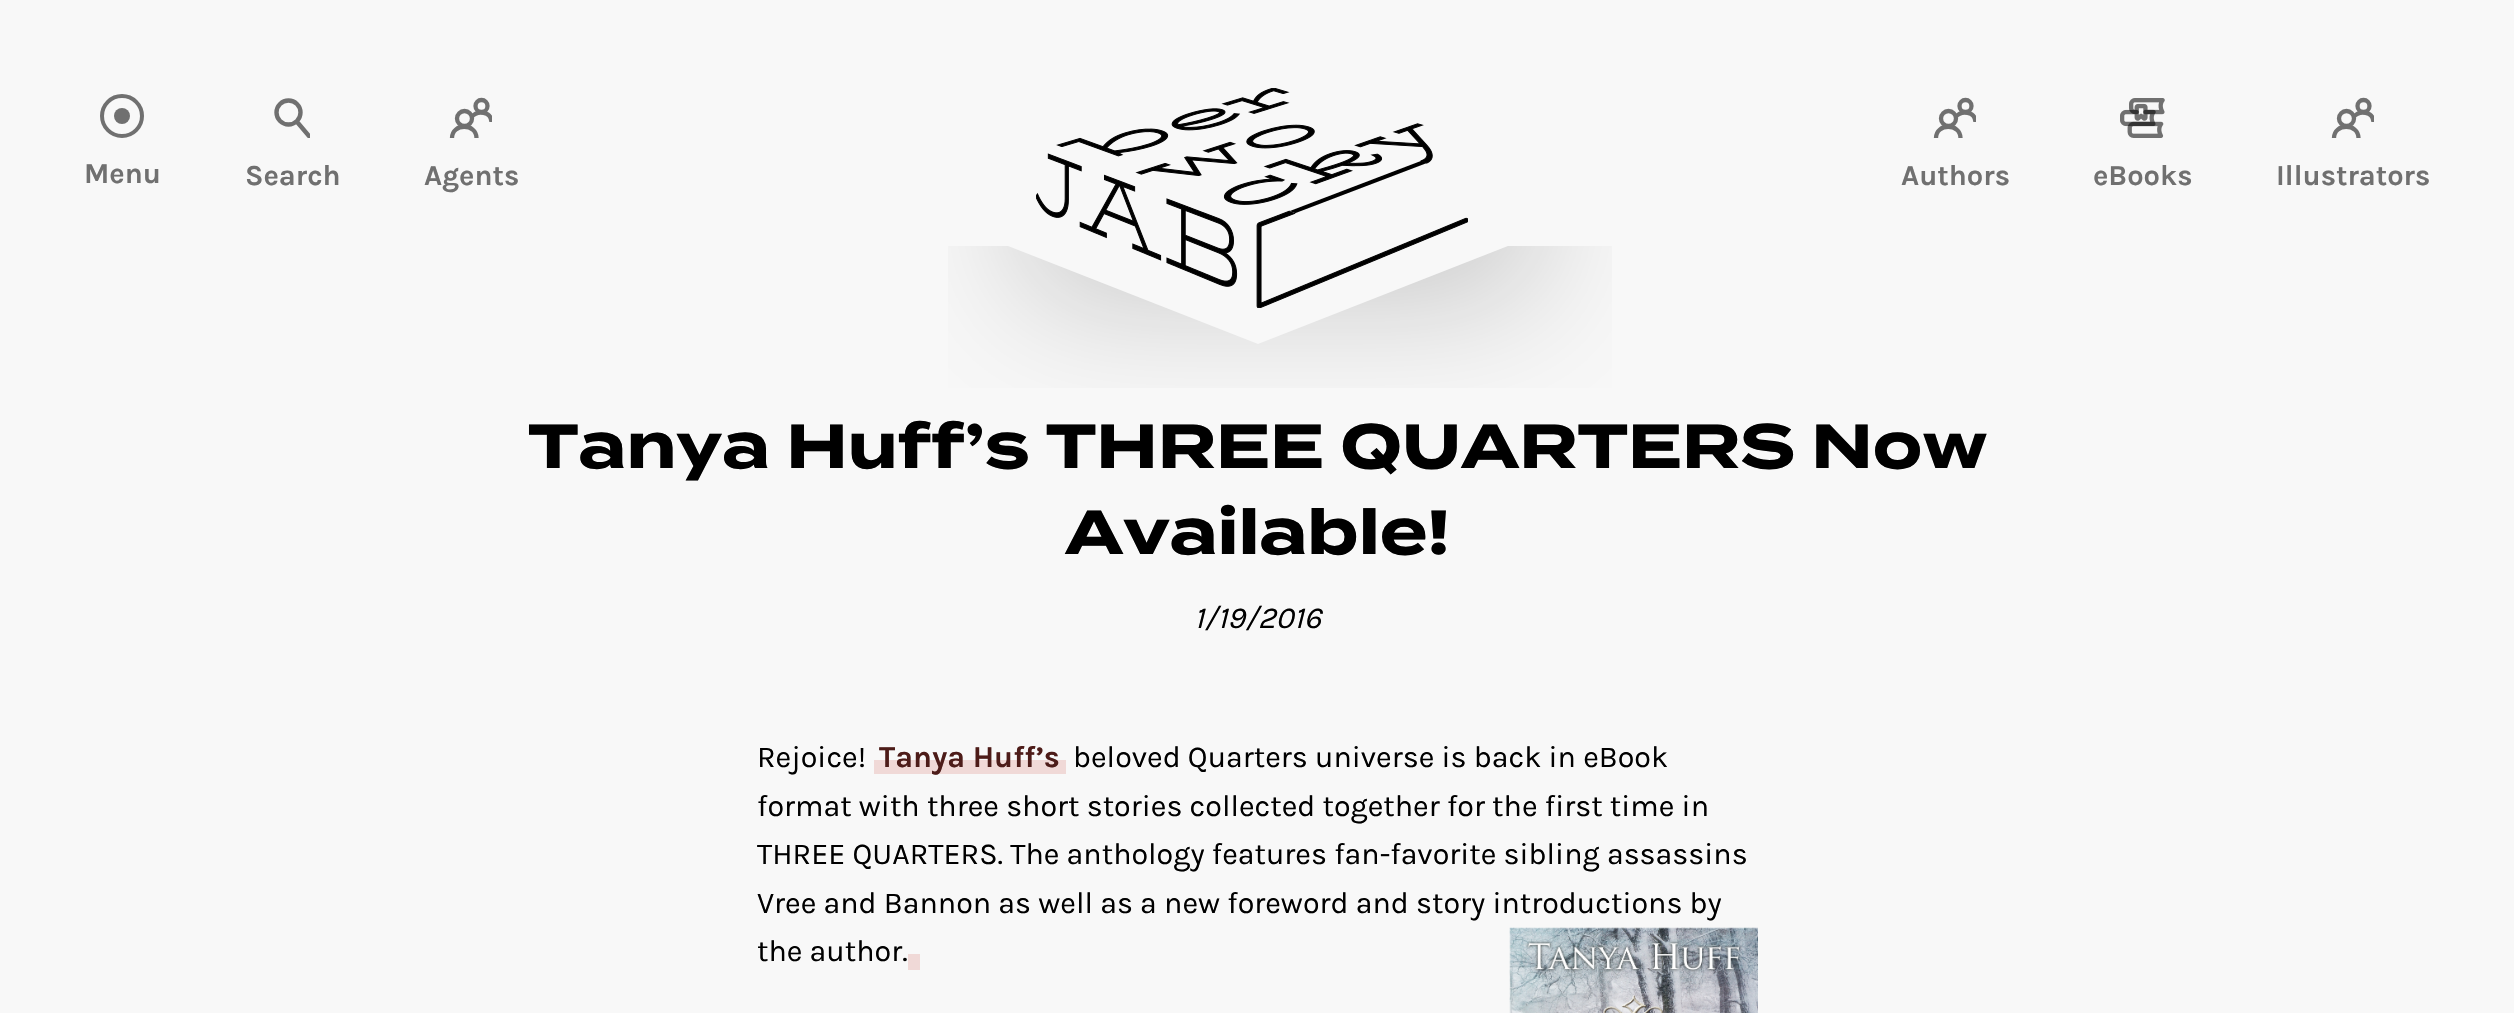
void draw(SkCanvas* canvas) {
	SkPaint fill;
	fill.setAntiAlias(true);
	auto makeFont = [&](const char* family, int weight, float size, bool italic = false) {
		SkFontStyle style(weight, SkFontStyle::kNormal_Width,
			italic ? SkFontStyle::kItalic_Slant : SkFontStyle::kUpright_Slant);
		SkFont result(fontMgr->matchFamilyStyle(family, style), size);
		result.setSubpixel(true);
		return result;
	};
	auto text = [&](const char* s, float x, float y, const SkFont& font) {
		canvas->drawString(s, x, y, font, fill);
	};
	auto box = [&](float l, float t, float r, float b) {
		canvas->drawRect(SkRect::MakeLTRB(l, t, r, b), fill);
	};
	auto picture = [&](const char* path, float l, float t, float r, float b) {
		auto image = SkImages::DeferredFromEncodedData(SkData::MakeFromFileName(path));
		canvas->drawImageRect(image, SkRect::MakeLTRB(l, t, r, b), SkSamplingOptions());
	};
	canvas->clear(0xFFF8F8F8);
	canvas->save();
	canvas->clipRect(SkRect::MakeLTRB(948, 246, 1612, 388));
	fill.setColor(0x36000000);
	fill.setMaskFilter(SkMaskFilter::MakeBlur(kNormal_SkBlurStyle, 70));
	canvas->drawRect(SkRect::MakeLTRB(1028, 96, 1532, 296), fill);
	fill.setMaskFilter(nullptr);
	canvas->restore();
	fill.setColor(0xFFF8F8F8);
	box(972, 0, 1588, 46);
	canvas->drawPath(SkPathBuilder().moveTo(1008, 246).lineTo(1508, 246).lineTo(1258, 344).close().detach(), fill);
	box(919, 46, 1008, 246);
	fill.setStyle(SkPaint::kStroke_Style);
	fill.setStrokeWidth(4);
	fill.setColor(0xFF707070);
	canvas->drawCircle(122, 116, 20, fill);
	fill.setStyle(SkPaint::kFill_Style);
	canvas->drawCircle(122, 116, 8, fill);
	canvas->save();
	canvas->clipRect(SkRect::MakeLTRB(274, 98, 310, 138));
	fill.setStyle(SkPaint::kStroke_Style);
	fill.setStrokeWidth(4.4f);
	fill.setStrokeCap(SkPaint::kRound_Cap);
	fill.setStrokeJoin(SkPaint::kRound_Join);
	canvas->drawPath(SkPathBuilder().moveTo(298, 123).lineTo(309, 136).detach(), fill);
	canvas->restore();
	fill.setStrokeCap(SkPaint::kButt_Cap);
	fill.setStrokeJoin(SkPaint::kMiter_Join);
	canvas->drawCircle(288.5f, 112.5f, 12, fill);
	fill.setStrokeWidth(4.3f);
	canvas->drawCircle(464.5f, 118.5f, 7.5f, fill);
	canvas->drawPath(SkPathBuilder().moveTo(452, 138).cubicTo(452, 123, 476.5f, 123, 476.5f, 138).detach(), fill);
	canvas->drawCircle(481.5f, 106, 6, fill);
	canvas->save();
	canvas->clipRect(SkRect::MakeLTRB(450, 98, 492, 138));
	canvas->drawPath(SkPathBuilder().moveTo(471.5f, 117).cubicTo(477.5f, 110, 491, 111.5f, 491.5f, 122).detach(), fill);
	canvas->restore();
	picture("image0.png", 1036, 88, 1468, 308);
	fill.setStyle(SkPaint::kFill_Style);
	fill.setColor(0xFFF8F8F8);
	box(1512, 46, 1641, 246);
	fill.setStyle(SkPaint::kStroke_Style);
	fill.setColor(0xFF707070);
	canvas->drawCircle(1948.5f, 118.5f, 7.5f, fill);
	canvas->drawPath(SkPathBuilder().moveTo(1936, 138).cubicTo(1936, 123, 1960.5f, 123, 1960.5f, 138).detach(), fill);
	canvas->drawCircle(1965.5f, 106, 6, fill);
	canvas->save();
	canvas->clipRect(SkRect::MakeLTRB(1934, 98, 1976, 138));
	canvas->drawPath(SkPathBuilder().moveTo(1955.5f, 117).cubicTo(1961.5f, 110, 1975, 111.5f, 1975.5f, 122).detach(), fill);
	canvas->restore();
	picture("image1.png", 2120, 98, 2165, 138);
	canvas->drawCircle(2346.5f, 118.5f, 7.5f, fill);
	canvas->drawPath(SkPathBuilder().moveTo(2334, 138).cubicTo(2334, 123, 2358.5f, 123, 2358.5f, 138).detach(), fill);
	canvas->drawCircle(2363.5f, 106, 6, fill);
	canvas->save();
	canvas->clipRect(SkRect::MakeLTRB(2332, 98, 2374, 138));
	canvas->drawPath(SkPathBuilder().moveTo(2353.5f, 117).cubicTo(2359.5f, 110, 2373, 111.5f, 2373.5f, 122).detach(), fill);
	canvas->restore();
	fill.setStyle(SkPaint::kFill_Style);
	fill.setColor(0xFFF0D9D7);
	box(874, 760, 1066, 774);
	box(908, 954, 920, 970);
	picture("image2.png", 1509, 927, 1758, 1013);
	auto font1 = makeFont("Karla", 700, 29);
	fill.setColor(0xFF707070);
	text("Menu", 84, 183, font1);
	text("Search", 245, 185, font1);
	text("Agents", 424, 185, font1);
	text("Authors", 1901, 185, font1);
	text("eBooks", 2093, 185, font1);
	text("Illustrators", 2276, 185, font1);
	auto font2 = makeFont("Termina", 700, 62);
	fill.setColor(0xFF000000);
	text("Tanya Huff’s THREE QUARTERS Now", 528, 468, font2);
	text("Available!", 1065, 554, font2);
	auto font3 = makeFont("Karla", 400, 30.4f, true);
	text("1/19/2016", 1194, 628, font3);
	auto font4 = makeFont("Karla", 400, 30.4f);
	text("Rejoice!", 757, 767, font4);
	auto font5 = makeFont("Karla", 700, 30.4f);
	fill.setColor(0xFF4D1C19);
	text("Tanya Huff’s", 879, 767, font5);
	fill.setColor(0xFF000000);
	text("beloved Quarters universe is back in eBook", 1073, 767, font4);
	text("format with three short stories collected together for the first time in", 757, 816, font4);
	text("THREE QUARTERS. The anthology features fan-favorite sibling assassins", 757, 864, font4);
	text("Vree and Bannon as well as a new foreword and story introductions by", 757, 913, font4);
	text("the author.", 757, 961, font4);
}
